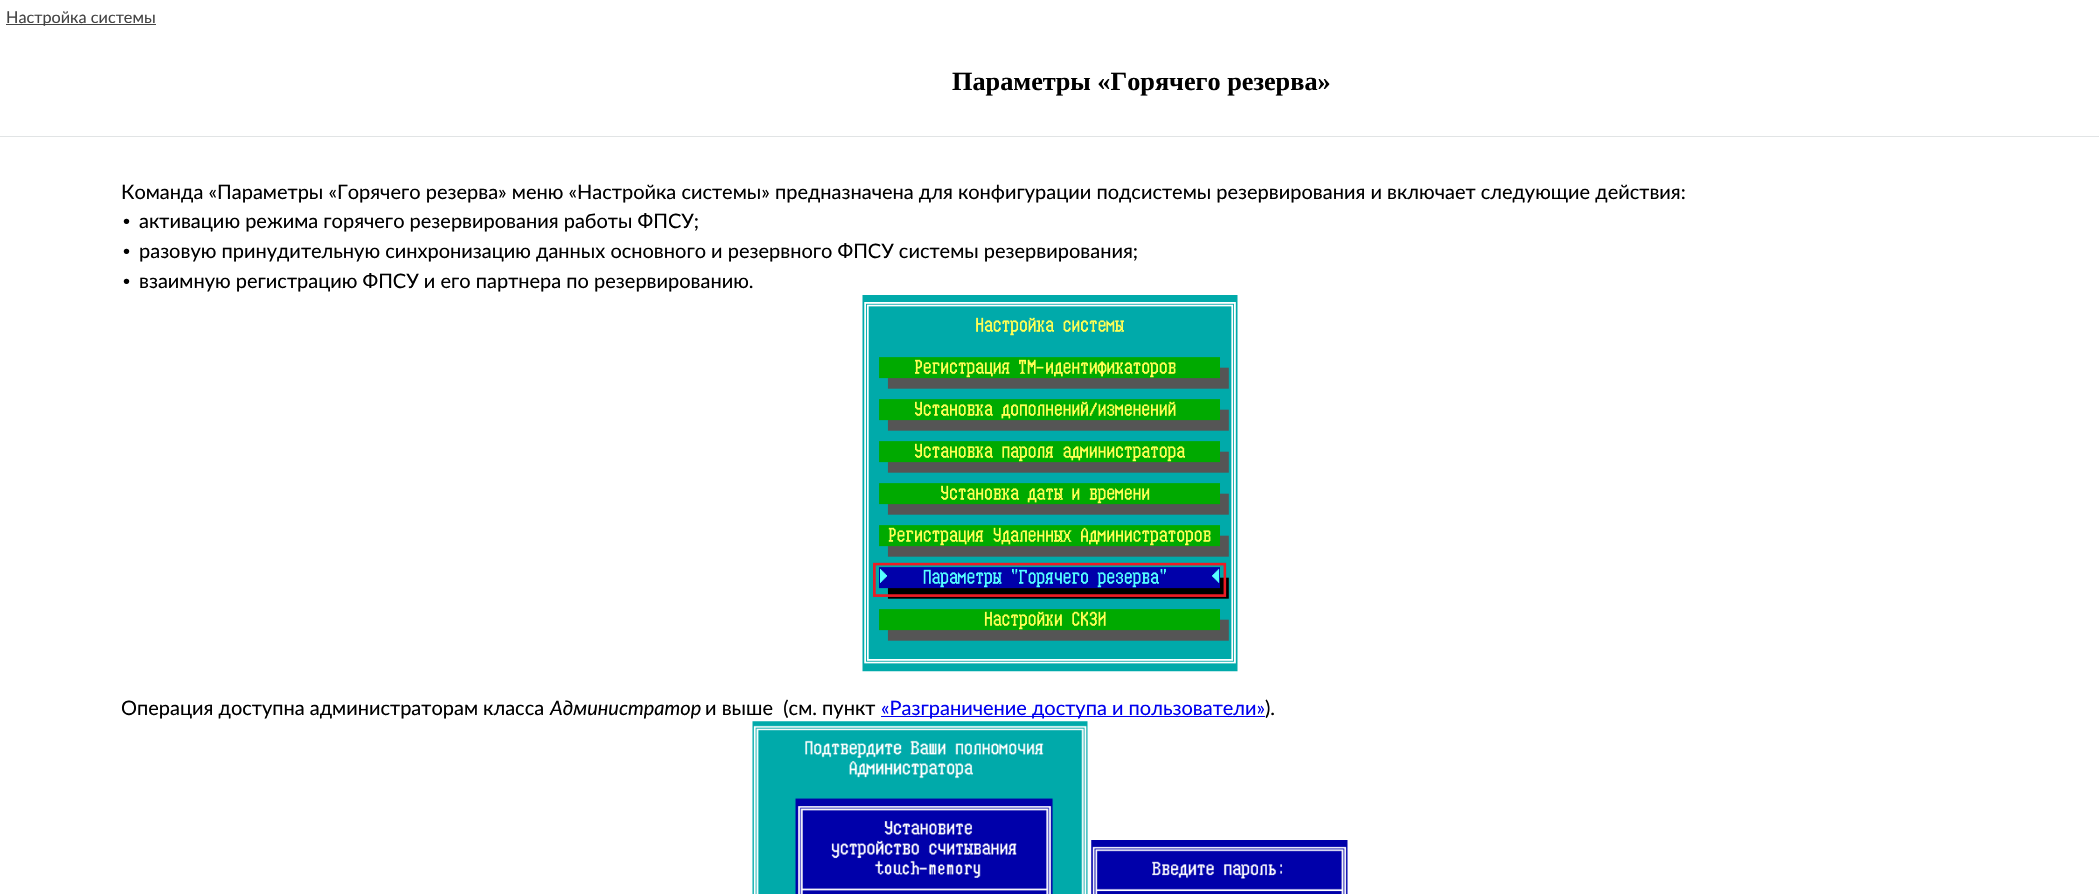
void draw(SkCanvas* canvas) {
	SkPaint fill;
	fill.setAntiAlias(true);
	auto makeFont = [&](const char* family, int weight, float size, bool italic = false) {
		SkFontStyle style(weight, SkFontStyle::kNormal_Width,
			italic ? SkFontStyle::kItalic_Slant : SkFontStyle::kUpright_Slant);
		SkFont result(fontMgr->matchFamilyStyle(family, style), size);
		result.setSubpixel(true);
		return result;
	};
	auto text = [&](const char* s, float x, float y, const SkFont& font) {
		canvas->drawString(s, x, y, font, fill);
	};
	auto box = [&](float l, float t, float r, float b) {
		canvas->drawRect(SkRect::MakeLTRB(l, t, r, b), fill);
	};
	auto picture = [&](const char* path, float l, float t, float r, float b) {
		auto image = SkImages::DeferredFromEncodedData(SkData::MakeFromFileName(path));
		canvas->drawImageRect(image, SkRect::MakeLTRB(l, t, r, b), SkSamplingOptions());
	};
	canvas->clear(0xFFFFFFFF);
	fill.setColor(0xFF444444);
	box(6, 24, 156, 25);
	fill.setColor(0xFFE1E4E5);
	box(0, 136, 2099, 137);
	picture("image0.png", 862, 295, 1238, 672);
	fill.setColor(0xFF0000EE);
	box(881, 716, 1265, 717);
	picture("image1.png", 752, 721, 1088, 894);
	picture("image2.png", 1091, 840, 1348, 894);
	auto font1 = makeFont("Lato", 400, 16.25f);
	fill.setColor(0xFF444444);
	text("Настройка системы", 6, 23, font1);
	auto font2 = makeFont("Liberation Serif", 700, 26.25f);
	fill.setColor(0xFF000000);
	text("Параметры «Горячего резерва»", 952, 90, font2);
	auto font3 = makeFont("Lato", 400, 20);
	text("Команда «Параметры «Горячего резерва» меню «Настройка системы» предназначена для конфигурации подсистемы резервирования и включает следующие действия:", 121, 199, font3);
	auto font4 = makeFont("Liberation Sans", 400, 20);
	text("•", 123, 228, font4);
	text("активацию режима горячего резервирования работы ФПСУ;", 139, 228, font3);
	text("•", 123, 258, font4);
	text("разовую принудительную синхронизацию данных основного и резервного ФПСУ системы резервирования;", 139, 258, font3);
	text("•", 123, 288, font4);
	text("взаимную регистрацию ФПСУ и его партнера по резервированию.", 139, 288, font3);
	text("Операция доступна администраторам класса", 121, 715, font3);
	auto font5 = makeFont("Lato", 400, 20, true);
	text("Администратор", 550, 715, font5);
	text("и выше  (см. пункт", 705, 715, font3);
	fill.setColor(0xFF0000EE);
	text("«Разграничение доступа и пользователи»", 881, 715, font3);
	fill.setColor(0xFF000000);
	text(").", 1265, 715, font3);
}
